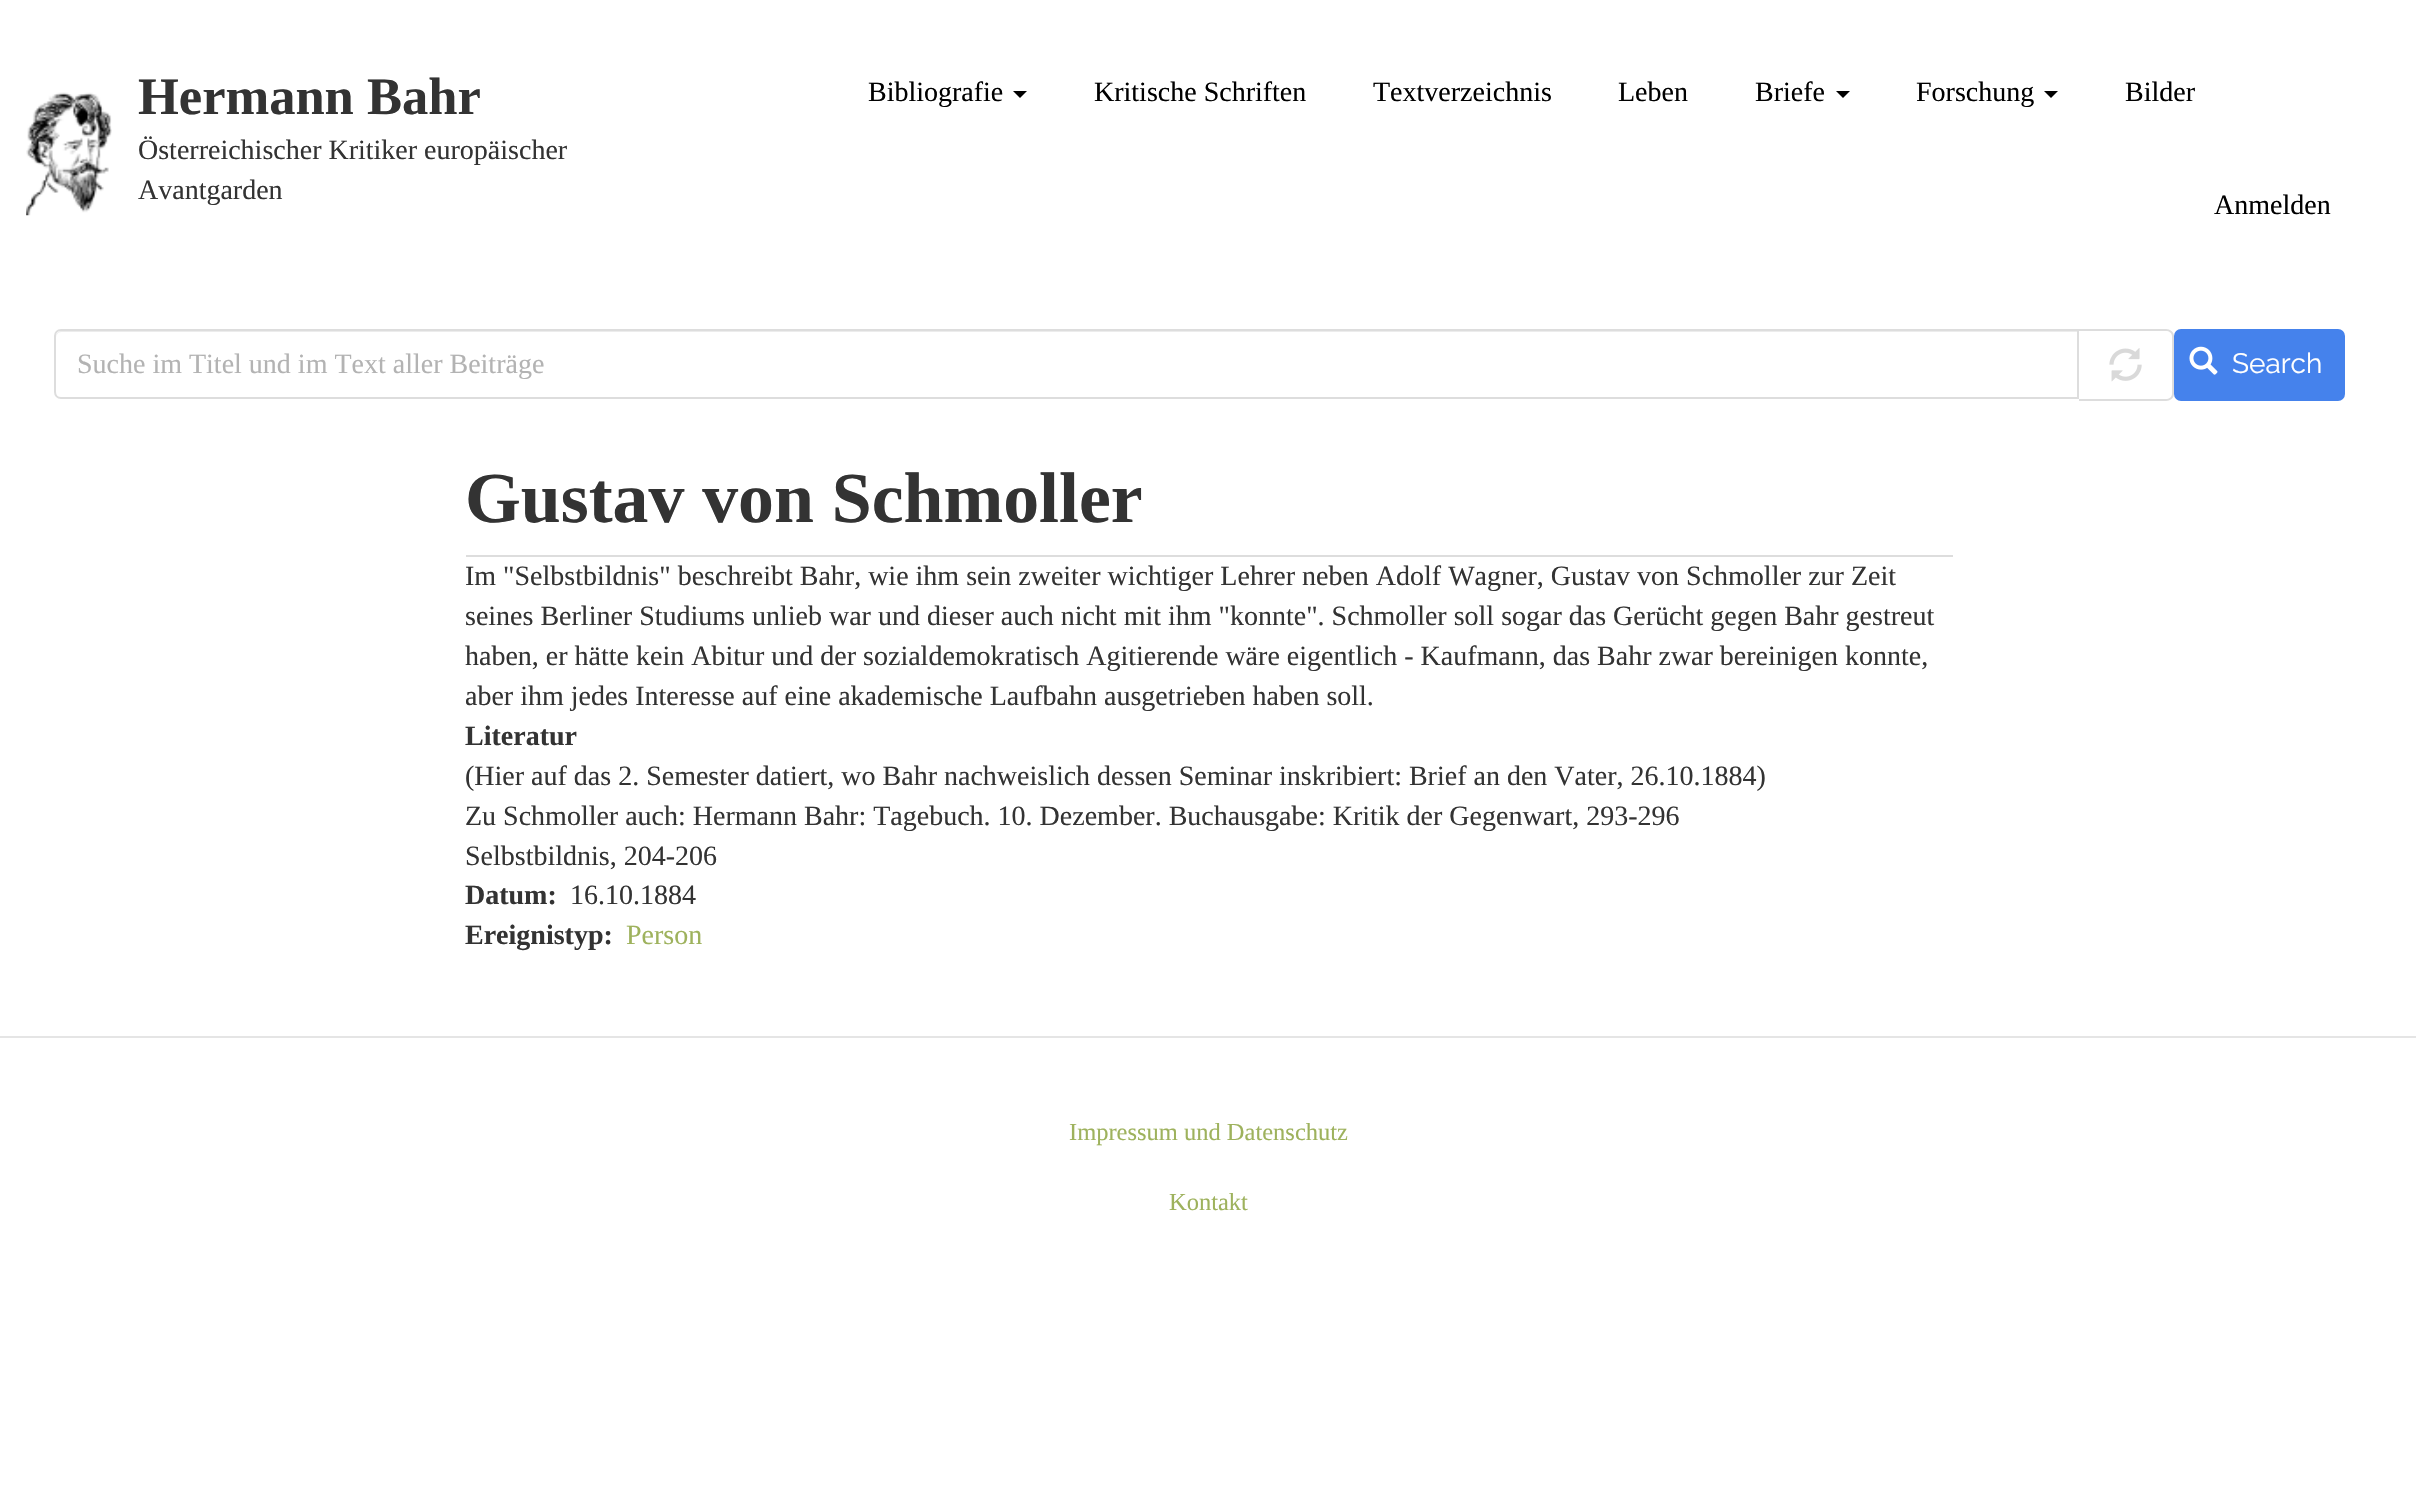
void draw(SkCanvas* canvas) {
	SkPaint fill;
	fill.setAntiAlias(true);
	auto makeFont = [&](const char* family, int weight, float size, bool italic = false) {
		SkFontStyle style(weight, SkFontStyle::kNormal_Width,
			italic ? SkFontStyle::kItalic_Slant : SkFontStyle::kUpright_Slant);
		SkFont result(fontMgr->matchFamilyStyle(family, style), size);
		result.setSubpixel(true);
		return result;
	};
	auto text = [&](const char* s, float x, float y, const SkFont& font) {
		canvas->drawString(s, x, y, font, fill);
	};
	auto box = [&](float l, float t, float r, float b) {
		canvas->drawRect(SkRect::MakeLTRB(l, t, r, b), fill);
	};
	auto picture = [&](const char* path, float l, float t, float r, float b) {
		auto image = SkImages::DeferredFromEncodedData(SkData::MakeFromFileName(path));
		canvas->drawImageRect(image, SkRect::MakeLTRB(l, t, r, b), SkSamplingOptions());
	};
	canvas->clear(0xFFFFFFFF);
	picture("image0.png", 26, 92, 112, 216);
	fill.setColor(0xFF000000);
	canvas->drawPath(SkPathBuilder().moveTo(1013, 91).lineTo(1027, 91).lineTo(1020, 98).close().detach(), fill);
	canvas->drawPath(SkPathBuilder().moveTo(1836, 91).lineTo(1850, 91).lineTo(1843, 98).close().detach(), fill);
	canvas->drawPath(SkPathBuilder().moveTo(2044, 91).lineTo(2058, 91).lineTo(2051, 98).close().detach(), fill);
	fill.setColor(0xFFECECEC);
	canvas->drawPath(SkPathBuilder().moveTo(61, 332).lineTo(2077, 332).lineTo(2077, 331).lineTo(61, 331).cubicTo(57, 331, 56, 335, 56, 338).cubicTo(56, 335, 58, 332, 61, 332).close().detach(), fill);
	fill.setStyle(SkPaint::kStroke_Style);
	fill.setStrokeWidth(2);
	fill.setColor(0xFFDDDDDD);
	canvas->drawPath(SkPathBuilder().moveTo(61, 330).lineTo(2078, 330).lineTo(2078, 398).lineTo(61, 398).cubicTo(57.5f, 398, 55, 395.5f, 55, 392).lineTo(55, 336).cubicTo(55, 332.5f, 57.5f, 330, 61, 330).close().detach(), fill);
	fill.setStyle(SkPaint::kFill_Style);
	canvas->drawPath(SkPathBuilder(SkPathFillType::kEvenOdd).moveTo(2079, 329).lineTo(2166, 329).cubicTo(2170, 329, 2174, 332, 2174, 336).lineTo(2174, 394).cubicTo(2174, 398, 2170, 401, 2166, 401).lineTo(2079, 401).close().moveTo(2079, 331).lineTo(2166, 331).cubicTo(2169, 331, 2172, 333, 2172, 336).lineTo(2172, 394).cubicTo(2172, 397, 2169, 399, 2166, 399).lineTo(2079, 399).close().detach(), fill);
	picture("image1.png", 2109, 348, 2142, 382);
	fill.setColor(0xFF4582EC);
	canvas->drawRoundRect(SkRect::MakeLTRB(2175, 330, 2344, 400), 6, 6, fill);
	fill.setStyle(SkPaint::kStroke_Style);
	canvas->drawRoundRect(SkRect::MakeLTRB(2175, 330, 2344, 400), 6, 6, fill);
	picture("image2.png", 2189, 346, 2218, 375);
	fill.setStyle(SkPaint::kFill_Style);
	fill.setColor(0xFFDDDDDD);
	box(466, 555, 1953, 557);
	fill.setColor(0xFFE5E5E5);
	box(0, 1036, 2416, 1038);
	auto font1 = makeFont("Liberation Serif", 700, 52.5f);
	fill.setColor(0xFF333333);
	text("Hermann Bahr", 138, 114, font1);
	auto font2 = makeFont("Liberation Serif", 400, 28);
	text("Österreichischer Kritiker europäischer", 138, 159, font2);
	text("Avantgarden", 138, 199, font2);
	fill.setColor(0xFF000000);
	text("Bibliografie", 868, 101, font2);
	text("Kritische Schriften", 1094, 101, font2);
	text("Textverzeichnis", 1373, 101, font2);
	text("Leben", 1618, 101, font2);
	text("Briefe", 1755, 101, font2);
	text("Forschung", 1916, 101, font2);
	text("Bilder", 2125, 101, font2);
	text("Anmelden", 2214, 214, font2);
	fill.setColor(0xFFB3B3B3);
	text("Suche im Titel und im Text aller Beiträge", 77, 373, font2);
	auto font3 = makeFont("Raleway", 400, 28);
	fill.setColor(0xFFFFFFFF);
	text("Search", 2232, 373, font3);
	auto font4 = makeFont("Liberation Serif", 700, 71.75f);
	fill.setColor(0xFF333333);
	text("Gustav von Schmoller", 465, 522, font4);
	text("Im \"Selbstbildnis\" beschreibt Bahr, wie ihm sein zweiter wichtiger Lehrer neben Adolf Wagner, Gustav von Schmoller zur Zeit", 465, 585, font2);
	text("seines Berliner Studiums unlieb war und dieser auch nicht mit ihm \"konnte\". Schmoller soll sogar das Gerücht gegen Bahr gestreut", 465, 625, font2);
	text("haben, er hätte kein Abitur und der sozialdemokratisch Agitierende wäre eigentlich - Kaufmann, das Bahr zwar bereinigen konnte,", 465, 665, font2);
	text("aber ihm jedes Interesse auf eine akademische Laufbahn ausgetrieben haben soll.", 465, 705, font2);
	auto font5 = makeFont("Liberation Serif", 700, 28);
	text("Literatur", 465, 745, font5);
	text("(Hier auf das 2. Semester datiert, wo Bahr nachweislich dessen Seminar inskribiert: Brief an den Vater, 26.10.1884)", 465, 785, font2);
	text("Zu Schmoller auch: Hermann Bahr: Tagebuch. 10. Dezember. Buchausgabe: Kritik der Gegenwart, 293-296", 465, 825, font2);
	text("Selbstbildnis, 204-206", 465, 865, font2);
	text("Datum:", 465, 904, font5);
	text("16.10.1884", 570, 904, font2);
	text("Ereignistyp:", 465, 944, font5);
	fill.setColor(0xFF9EB25D);
	text("Person", 626, 944, font2);
	auto font6 = makeFont("Liberation Serif", 400, 24.5f);
	text("Impressum und Datenschutz", 1069, 1140, font6);
	text("Kontakt", 1169, 1210, font6);
}
